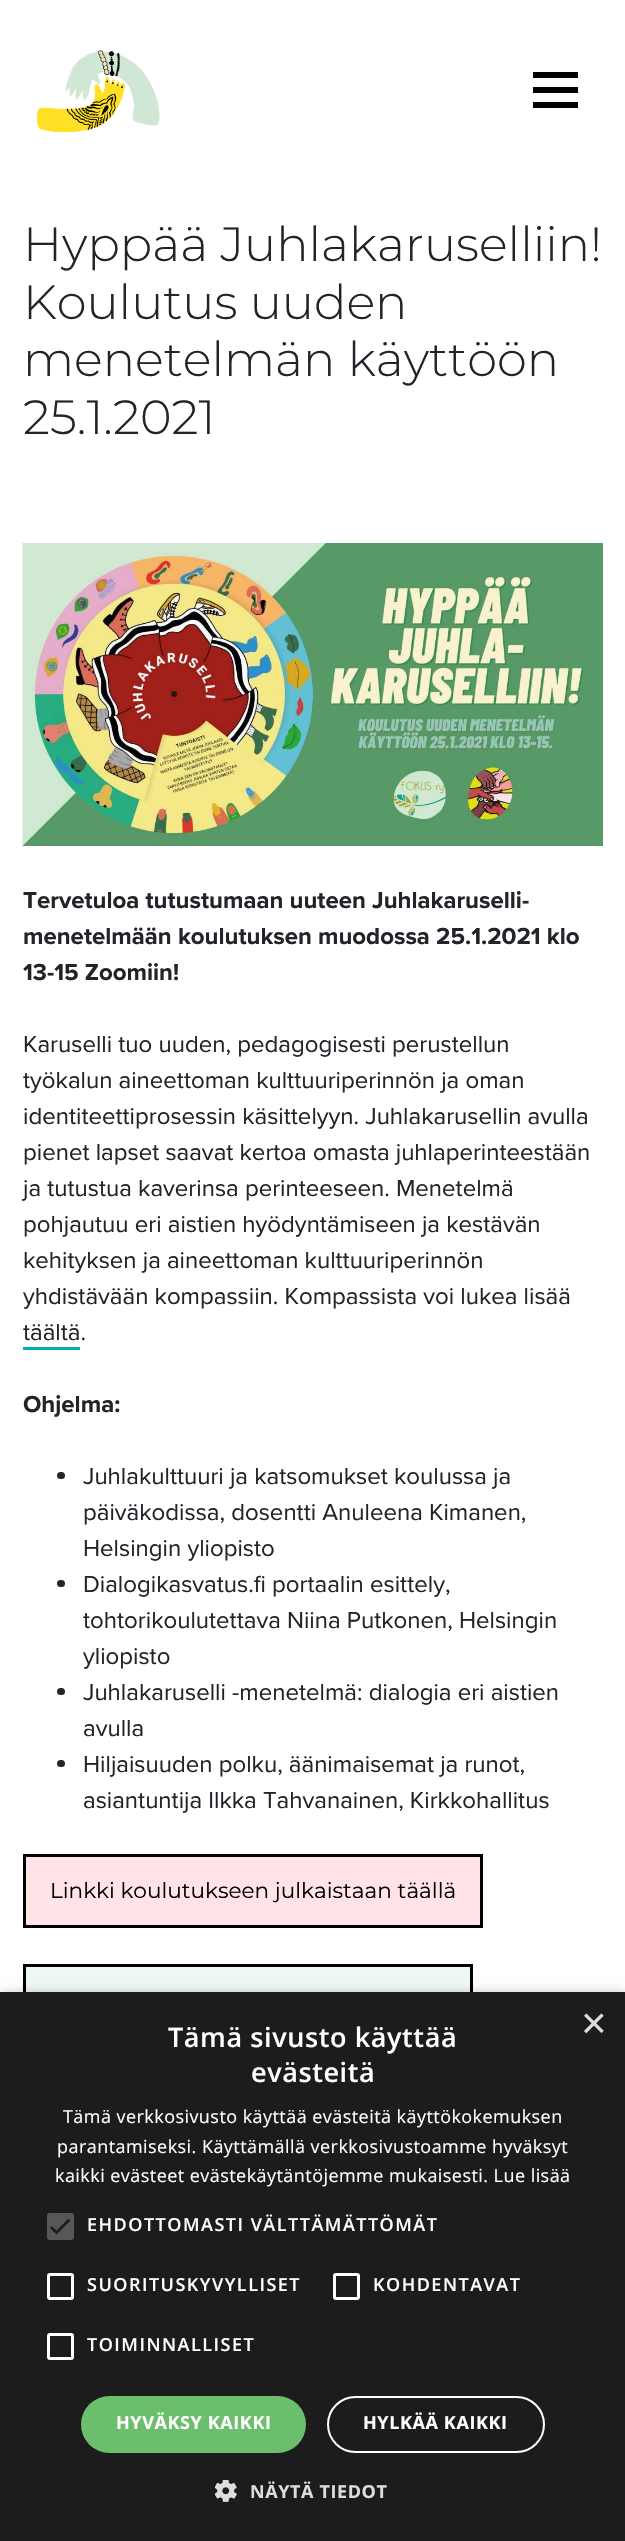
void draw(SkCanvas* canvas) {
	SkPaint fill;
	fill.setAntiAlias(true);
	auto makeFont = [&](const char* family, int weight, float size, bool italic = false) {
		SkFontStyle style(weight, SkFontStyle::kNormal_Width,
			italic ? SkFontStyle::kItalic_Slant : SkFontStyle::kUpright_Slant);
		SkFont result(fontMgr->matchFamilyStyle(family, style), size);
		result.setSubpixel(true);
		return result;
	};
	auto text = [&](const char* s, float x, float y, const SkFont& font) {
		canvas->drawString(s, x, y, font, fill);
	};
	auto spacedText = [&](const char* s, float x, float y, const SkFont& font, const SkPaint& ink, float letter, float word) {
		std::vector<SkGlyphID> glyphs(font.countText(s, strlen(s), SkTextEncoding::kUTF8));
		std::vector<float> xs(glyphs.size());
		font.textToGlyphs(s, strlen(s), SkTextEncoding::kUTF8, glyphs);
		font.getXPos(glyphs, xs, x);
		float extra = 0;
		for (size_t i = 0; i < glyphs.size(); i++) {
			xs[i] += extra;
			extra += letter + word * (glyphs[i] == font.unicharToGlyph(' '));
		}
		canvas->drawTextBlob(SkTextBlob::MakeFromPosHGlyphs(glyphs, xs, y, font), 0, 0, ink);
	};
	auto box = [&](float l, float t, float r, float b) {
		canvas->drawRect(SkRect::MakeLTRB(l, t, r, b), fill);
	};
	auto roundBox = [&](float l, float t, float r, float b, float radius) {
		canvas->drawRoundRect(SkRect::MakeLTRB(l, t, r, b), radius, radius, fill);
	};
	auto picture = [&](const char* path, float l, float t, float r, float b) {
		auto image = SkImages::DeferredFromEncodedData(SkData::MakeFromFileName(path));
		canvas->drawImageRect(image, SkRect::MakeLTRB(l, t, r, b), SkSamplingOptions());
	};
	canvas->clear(0xFFFFFFFF);
	picture("image0.png", 36, 50, 160, 133);
	fill.setColor(0xFF000000);
	box(533, 87, 578, 93);
	box(533, 72, 578, 78);
	box(533, 102, 578, 108);
	picture("image1.png", 22, 543, 603, 846);
	fill.setColor(0xFF00ACB2);
	box(23, 1347, 80, 1350);
	fill.setColor(0xFF212529);
	roundBox(57, 1472, 65, 1479, 3.5f);
	roundBox(57, 1580, 65, 1587, 3.5f);
	roundBox(57, 1688, 65, 1695, 3.5f);
	roundBox(57, 1760, 65, 1767, 3.5f);
	fill.setColor(0xFFFFE3E7);
	canvas->drawRect(SkRect::MakeLTRB(24.5f, 1855.5f, 481.5f, 1926.5f), fill);
	fill.setStyle(SkPaint::kStroke_Style);
	fill.setStrokeWidth(3);
	fill.setColor(0xFF000000);
	canvas->drawRect(SkRect::MakeLTRB(24.5f, 1855.5f, 481.5f, 1926.5f), fill);
	fill.setStyle(SkPaint::kFill_Style);
	fill.setColor(0xFFEFF9F4);
	box(26, 1967, 470, 1992);
	fill.setStyle(SkPaint::kStroke_Style);
	fill.setColor(0xFF000000);
	canvas->drawRect(SkRect::MakeLTRB(24.5f, 1965.5f, 471.5f, 2035.5f), fill);
	fill.setStyle(SkPaint::kFill_Style);
	fill.setColor(0x59000000);
	fill.setMaskFilter(SkMaskFilter::MakeBlur(kNormal_SkBlurStyle, 6));
	canvas->drawRect(SkRect::MakeLTRB(2, 1995, 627, 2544), fill);
	fill.setMaskFilter(nullptr);
	fill.setColor(0xFF1C1C1C);
	box(0, 1992, 625, 2541);
	fill.setColor(0xFF575757);
	roundBox(47, 2213, 74, 2240, 3);
	fill.setStyle(SkPaint::kStroke_Style);
	fill.setStrokeWidth(2.7f);
	fill.setColor(0xFF1C1C1C);
	canvas->drawPath(SkPathBuilder().moveTo(51, 2227).lineTo(56.5f, 2232.5f).lineTo(69.5f, 2219.5f).detach(), fill);
	fill.setStrokeWidth(3);
	fill.setColor(0xFFFFFFFF);
	canvas->drawRoundRect(SkRect::MakeLTRB(48.5f, 2274.5f, 72.5f, 2298.5f), 1.5f, 1.5f, fill);
	canvas->drawRoundRect(SkRect::MakeLTRB(334.5f, 2274.5f, 358.5f, 2298.5f), 1.5f, 1.5f, fill);
	canvas->drawRoundRect(SkRect::MakeLTRB(48.5f, 2334.5f, 72.5f, 2358.5f), 1.5f, 1.5f, fill);
	fill.setStyle(SkPaint::kFill_Style);
	fill.setColor(0xFF6BBE6B);
	roundBox(81, 2396, 306, 2453, 28.5f);
	fill.setStyle(SkPaint::kStroke_Style);
	fill.setStrokeWidth(2);
	fill.setColor(0xFFFFFFFF);
	canvas->drawRoundRect(SkRect::MakeLTRB(328, 2397, 544, 2452), 27.5f, 27.5f, fill);
	picture("image2.png", 215, 2480, 237, 2502);
	auto font1 = makeFont("Montserrat", 300, 48);
	fill.setStyle(SkPaint::kFill_Style);
	fill.setColor(0xFF212529);
	text("Hyppää Juhlakaruselliin!", 23, 261, font1);
	text("Koulutus uuden", 23, 319, font1);
	text("menetelmän käyttöön", 23, 376, font1);
	text("25.1.2021", 23, 434, font1);
	auto font2 = makeFont("Proxima Nova", 700, 24);
	text("Tervetuloa tutustumaan uuteen Juhlakaruselli-", 23, 908, font2);
	text("menetelmään koulutuksen muodossa 25.1.2021 klo", 23, 944, font2);
	text("13-15 Zoomiin!", 23, 980, font2);
	auto font3 = makeFont("Proxima Nova", 400, 24);
	text("Karuselli tuo uuden, pedagogisesti perustellun", 23, 1052, font3);
	text("työkalun aineettoman kulttuuriperinnön ja oman", 23, 1088, font3);
	text("identiteettiprosessin käsittelyyn. Juhlakarusellin avulla", 23, 1124, font3);
	text("pienet lapset saavat kertoa omasta juhlaperinteestään", 23, 1160, font3);
	text("ja tutustua kaverinsa perinteeseen. Menetelmä", 23, 1196, font3);
	text("pohjautuu eri aistien hyödyntämiseen ja kestävän", 23, 1232, font3);
	text("kehityksen ja aineettoman kulttuuriperinnön", 23, 1268, font3);
	text("yhdistävään kompassiin. Kompassista voi lukea lisää", 23, 1304, font3);
	text("täältä.", 23, 1340, font3);
	text("Ohjelma:", 23, 1412, font2);
	text("Juhlakulttuuri ja katsomukset koulussa ja", 83, 1484, font3);
	text("päiväkodissa, dosentti Anuleena Kimanen,", 83, 1520, font3);
	text("Helsingin yliopisto", 83, 1556, font3);
	text("Dialogikasvatus.fi portaalin esittely,", 83, 1592, font3);
	text("tohtorikoulutettava Niina Putkonen, Helsingin", 83, 1628, font3);
	text("yliopisto", 83, 1664, font3);
	text("Juhlakaruselli -menetelmä: dialogia eri aistien", 83, 1700, font3);
	text("avulla", 83, 1736, font3);
	text("Hiljaisuuden polku, äänimaisemat ja runot,", 83, 1772, font3);
	text("asiantuntija Ilkka Tahvanainen, Kirkkohallitus", 83, 1808, font3);
	auto font4 = makeFont("Montserrat", 400, 21.6f);
	fill.setColor(0xFF000000);
	text("Linkki koulutukseen julkaistaan täällä", 50, 1898, font4);
	auto font5 = makeFont("Liberation Sans", 400, 44);
	fill.setColor(0xFFDDDDDD);
	text("×", 581, 2038, font5);
	auto font6 = makeFont("Open Sans", 600, 27);
	fill.setColor(0xFFFFFFFF);
	spacedText("Tämä sivusto käyttää", 168, 2047, font6, fill, 0.6f, 0);
	spacedText("evästeitä", 251, 2082, font6, fill, 0.6f, 0);
	auto font7 = makeFont("Open Sans", 400, 18);
	spacedText("Tämä verkkosivusto käyttää evästeitä käyttökokemuksen", 63, 2123, font7, fill, 0.45f, 0);
	spacedText("parantamiseksi. Käyttämällä verkkosivustoamme hyväksyt", 57, 2153, font7, fill, 0.45f, 0);
	spacedText("kaikki evästeet evästekäytäntöjemme mukaisesti. Lue lisää", 55, 2182, font7, fill, 0.45f, 0);
	auto font8 = makeFont("Open Sans", 600, 18);
	spacedText("EHDOTTOMASTI VÄLTTÄMÄTTÖMÄT", 87, 2231, font8, fill, 1.5f, 0);
	spacedText("SUORITUSKYVYLLISET", 87, 2291, font8, fill, 1.5f, 0);
	spacedText("KOHDENTAVAT", 373, 2291, font8, fill, 1.5f, 0);
	spacedText("TOIMINNALLISET", 87, 2351, font8, fill, 1.5f, 0);
	auto font9 = makeFont("Open Sans", 700, 18);
	spacedText("HYVÄKSY KAIKKI", 116, 2429, font9, fill, 0.6f, 0);
	spacedText("HYLKÄÄ KAIKKI", 363, 2429, font9, fill, 0.6f, 0);
	fill.setColor(0xFFDDDDDD);
	spacedText("NÄYTÄ TIEDOT", 250, 2498, font9, fill, 0.6f, 0);
}
